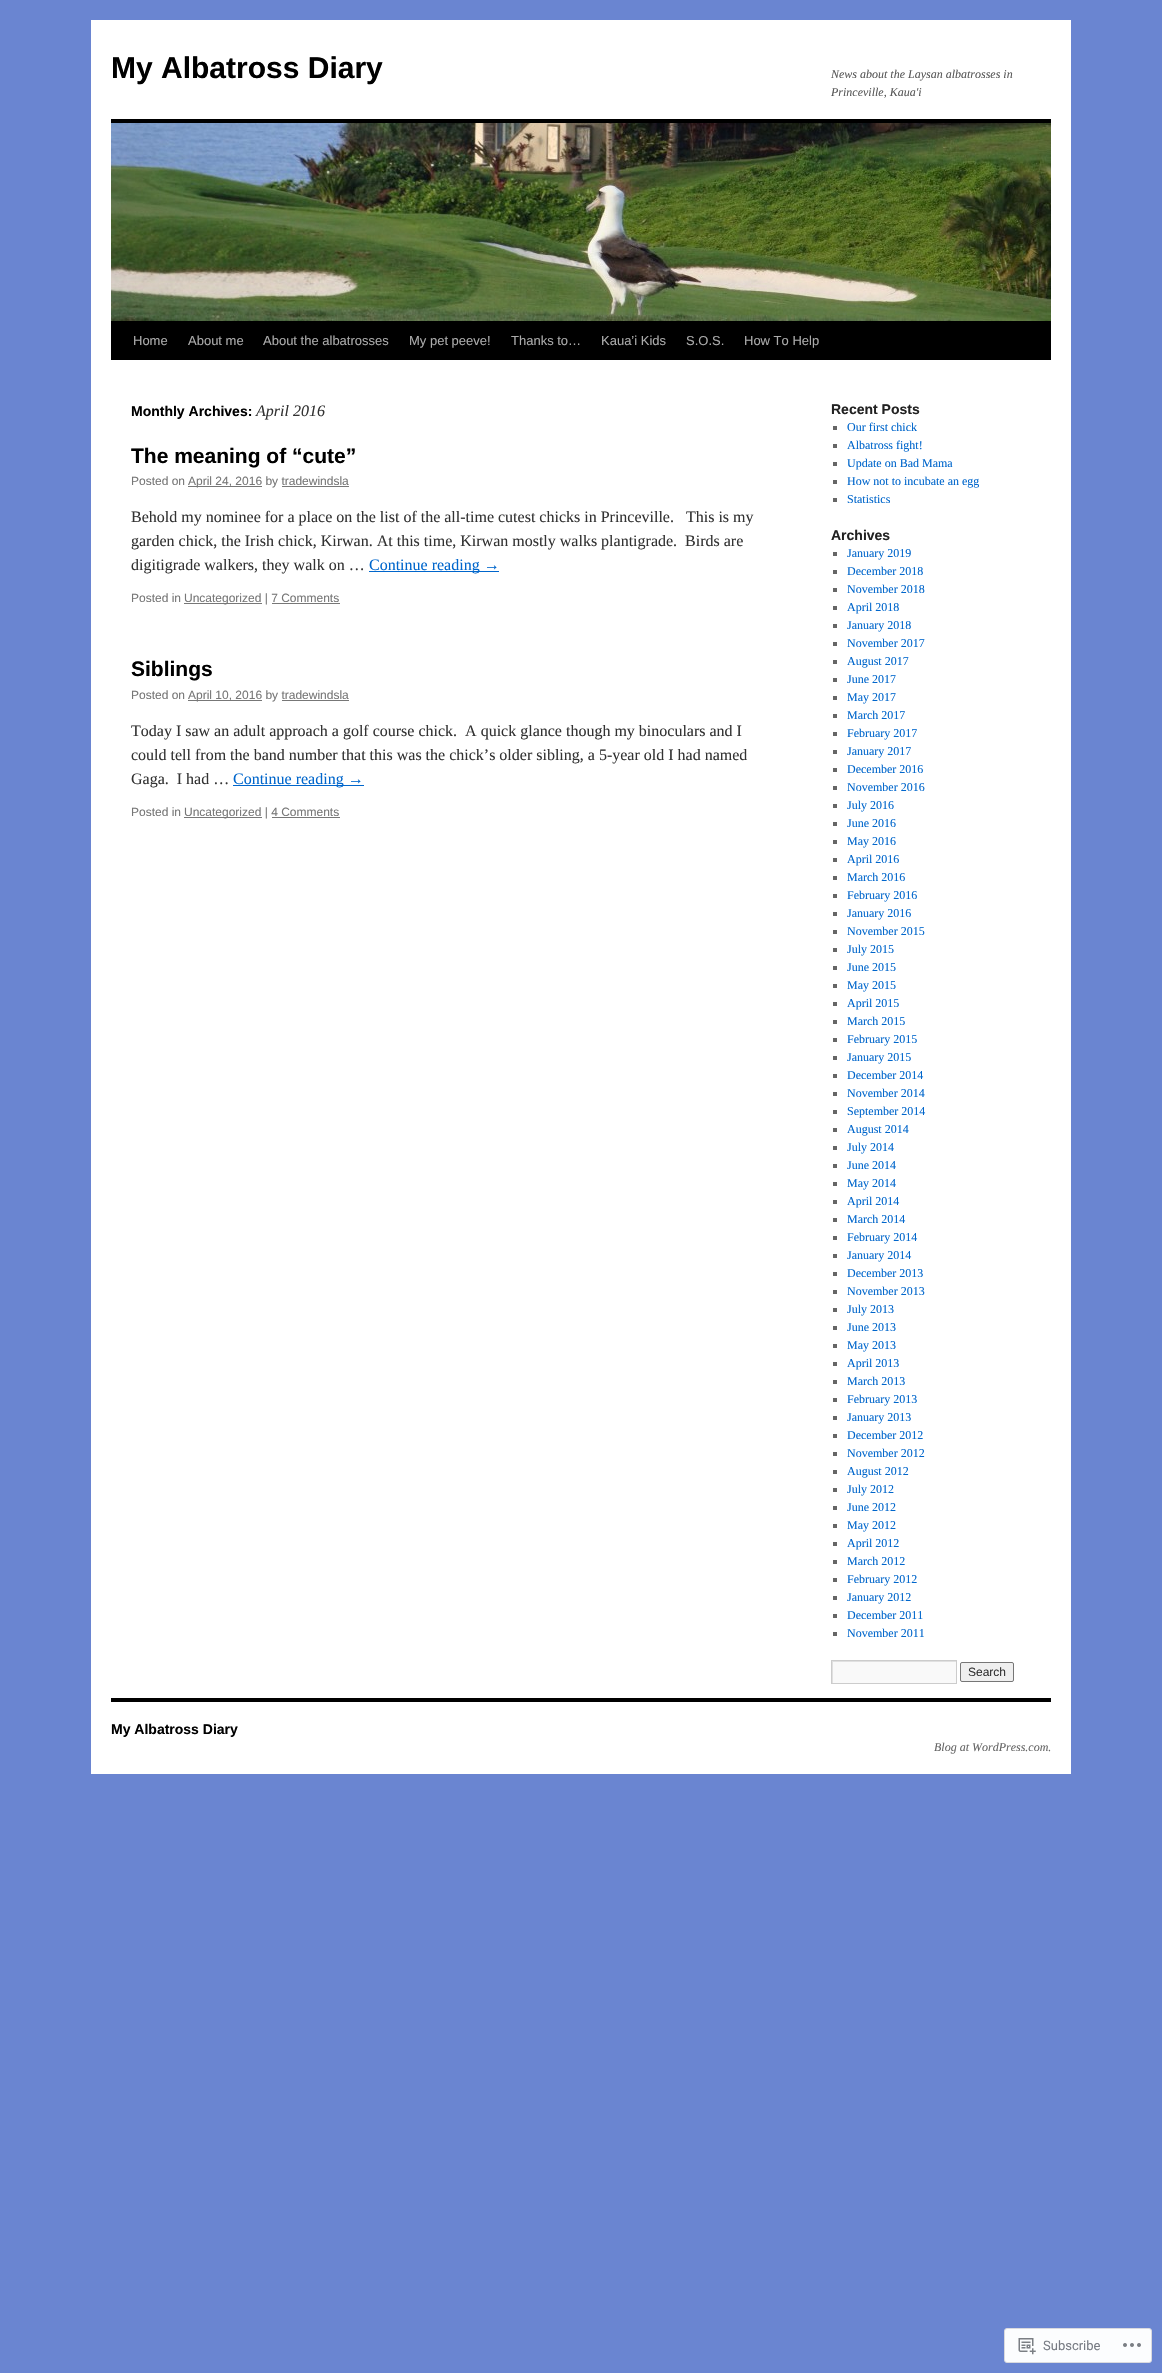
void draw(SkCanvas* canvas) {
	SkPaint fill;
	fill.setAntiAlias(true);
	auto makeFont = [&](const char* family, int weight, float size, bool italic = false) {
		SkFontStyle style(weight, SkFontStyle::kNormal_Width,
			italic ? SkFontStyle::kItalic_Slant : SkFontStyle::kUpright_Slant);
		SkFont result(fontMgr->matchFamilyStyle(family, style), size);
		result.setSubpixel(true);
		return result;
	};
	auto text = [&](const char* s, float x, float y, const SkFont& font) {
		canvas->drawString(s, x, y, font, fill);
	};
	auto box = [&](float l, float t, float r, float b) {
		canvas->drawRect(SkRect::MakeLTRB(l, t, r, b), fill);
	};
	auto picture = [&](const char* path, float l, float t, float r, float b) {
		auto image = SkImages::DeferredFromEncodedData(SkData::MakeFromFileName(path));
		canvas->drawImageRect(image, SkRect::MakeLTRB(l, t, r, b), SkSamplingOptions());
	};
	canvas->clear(0xFF6A85D1);
	fill.setColor(0xFFFFFFFF);
	box(91, 20, 1071, 1774);
	fill.setColor(0xFF000000);
	box(111, 119, 1051, 123);
	box(111, 321, 1051, 360);
	picture("image0.png", 111, 123, 1051, 321);
	fill.setColor(0xFF777777);
	box(188, 486, 262, 487);
	box(282, 486, 349, 487);
	fill.setColor(0xFF0066CC);
	box(369, 571, 499, 572);
	fill.setColor(0xFF777777);
	box(184, 603, 262, 604);
	box(272, 603, 340, 604);
	box(188, 700, 262, 701);
	box(282, 700, 349, 701);
	fill.setColor(0xFF0066CC);
	box(233, 785, 364, 786);
	fill.setColor(0xFF777777);
	box(184, 817, 262, 818);
	box(272, 817, 340, 818);
	fill.setColor(0xFF666666);
	box(833, 426, 837, 430);
	box(833, 444, 837, 448);
	box(833, 462, 837, 466);
	box(833, 480, 837, 484);
	box(833, 498, 837, 502);
	box(833, 552, 837, 556);
	box(833, 570, 837, 574);
	box(833, 588, 837, 592);
	box(833, 606, 837, 610);
	box(833, 624, 837, 628);
	box(833, 642, 837, 646);
	box(833, 660, 837, 664);
	box(833, 678, 837, 682);
	box(833, 696, 837, 700);
	box(833, 714, 837, 718);
	box(833, 732, 837, 736);
	box(833, 750, 837, 754);
	box(833, 768, 837, 772);
	box(833, 786, 837, 790);
	box(833, 804, 837, 808);
	box(833, 822, 837, 826);
	box(833, 840, 837, 844);
	box(833, 858, 837, 862);
	box(833, 876, 837, 880);
	box(833, 894, 837, 898);
	box(833, 912, 837, 916);
	box(833, 930, 837, 934);
	box(833, 948, 837, 952);
	box(833, 966, 837, 970);
	box(833, 984, 837, 988);
	box(833, 1002, 837, 1006);
	box(833, 1020, 837, 1024);
	box(833, 1038, 837, 1042);
	box(833, 1056, 837, 1060);
	box(833, 1074, 837, 1078);
	box(833, 1092, 837, 1096);
	box(833, 1110, 837, 1114);
	box(833, 1128, 837, 1132);
	box(833, 1146, 837, 1150);
	box(833, 1164, 837, 1168);
	box(833, 1182, 837, 1186);
	box(833, 1200, 837, 1204);
	box(833, 1218, 837, 1222);
	box(833, 1236, 837, 1240);
	box(833, 1254, 837, 1258);
	box(833, 1272, 837, 1276);
	box(833, 1290, 837, 1294);
	box(833, 1308, 837, 1312);
	box(833, 1326, 837, 1330);
	box(833, 1344, 837, 1348);
	box(833, 1362, 837, 1366);
	box(833, 1380, 837, 1384);
	box(833, 1398, 837, 1402);
	box(833, 1416, 837, 1420);
	box(833, 1434, 837, 1438);
	box(833, 1452, 837, 1456);
	box(833, 1470, 837, 1474);
	box(833, 1488, 837, 1492);
	box(833, 1506, 837, 1510);
	box(833, 1524, 837, 1528);
	box(833, 1542, 837, 1546);
	box(833, 1560, 837, 1564);
	box(833, 1578, 837, 1582);
	box(833, 1596, 837, 1600);
	box(833, 1614, 837, 1618);
	box(833, 1632, 837, 1636);
	fill.setColor(0xFFF9F9F9);
	box(833, 1662, 956, 1683);
	canvas->save();
	canvas->clipRect(SkRect::MakeLTRB(832, 1661, 956, 1683));
	fill.setColor(0xFFE0E0E0);
	canvas->drawPath(SkPathBuilder(SkPathFillType::kEvenOdd).moveTo(733, 1562).lineTo(1055, 1562).lineTo(1055, 1782).lineTo(733, 1782).close().moveTo(833, 1662).lineTo(957, 1662).lineTo(957, 1684).lineTo(833, 1684).close().detach(), fill);
	canvas->restore();
	fill.setStyle(SkPaint::kStroke_Style);
	fill.setStrokeWidth(1);
	fill.setColor(0xFFCCCCCC);
	canvas->drawRect(SkRect::MakeLTRB(831.5f, 1660.5f, 956.5f, 1683.5f), fill);
	fill.setStyle(SkPaint::kFill_Style);
	fill.setColor(0xFFEFEFEF);
	canvas->drawRoundRect(SkRect::MakeLTRB(960.5f, 1662.5f, 1013.5f, 1681.5f), 1.5f, 1.5f, fill);
	fill.setStyle(SkPaint::kStroke_Style);
	fill.setColor(0xFF767676);
	canvas->drawRoundRect(SkRect::MakeLTRB(960.5f, 1662.5f, 1013.5f, 1681.5f), 1.5f, 1.5f, fill);
	fill.setStyle(SkPaint::kFill_Style);
	fill.setColor(0xFF000000);
	box(111, 1698, 1051, 1702);
	fill.setColor(0xFFFCFDFE);
	canvas->drawRoundRect(SkRect::MakeLTRB(1004.5f, 2328.5f, 1151.5f, 2362.5f), 2.5f, 2.5f, fill);
	fill.setStyle(SkPaint::kStroke_Style);
	fill.setColor(0xFFDADADE);
	canvas->drawRoundRect(SkRect::MakeLTRB(1004.5f, 2328.5f, 1151.5f, 2362.5f), 2.5f, 2.5f, fill);
	picture("image1.png", 1018, 2338, 1036, 2355);
	picture("image2.png", 1123, 2343, 1141, 2347);
	auto font1 = makeFont("Liberation Sans", 700, 30);
	fill.setStyle(SkPaint::kFill_Style);
	fill.setColor(0xFF000000);
	text("My Albatross Diary", 111, 78, font1);
	auto font2 = makeFont("Liberation Serif", 400, 12, true);
	fill.setColor(0xFF595959);
	text("News about the Laysan albatrosses in", 831, 78, font2);
	text("Princeville, Kaua'i", 831, 96, font2);
	auto font3 = makeFont("Liberation Sans", 400, 13);
	fill.setColor(0xFFAAAAAA);
	text("Home", 133, 345, font3);
	text("About me", 188, 345, font3);
	text("About the albatrosses", 263, 345, font3);
	text("My pet peeve!", 409, 345, font3);
	text("Thanks to…", 511, 345, font3);
	text("Kaua’i Kids", 601, 345, font3);
	text("S.O.S.", 686, 345, font3);
	text("How To Help", 744, 345, font3);
	auto font4 = makeFont("Liberation Sans", 700, 14);
	fill.setColor(0xFF000000);
	text("Monthly Archives:", 131, 416, font4);
	auto font5 = makeFont("Liberation Serif", 400, 16, true);
	fill.setColor(0xFF333333);
	text("April 2016", 256, 416, font5);
	auto font6 = makeFont("Liberation Sans", 700, 21);
	fill.setColor(0xFF000000);
	text("The meaning of “cute”", 131, 463, font6);
	auto font7 = makeFont("Liberation Sans", 400, 12);
	fill.setColor(0xFF777777);
	text("Posted on", 131, 485, font7);
	text("April 24, 2016 by tradewindsla", 188, 485, font7);
	auto font8 = makeFont("Liberation Serif", 400, 16);
	fill.setColor(0xFF333333);
	text("Behold my nominee for a place on the list of the all-time cutest chicks in Princeville.   This is my", 131, 522, font8);
	text("garden chick, the Irish chick, Kirwan. At this time, Kirwan mostly walks plantigrade.  Birds are", 131, 546, font8);
	text("digitigrade walkers, they walk on …", 131, 570, font8);
	fill.setColor(0xFF0066CC);
	text("Continue reading →", 369, 570, font8);
	fill.setColor(0xFF777777);
	text("Posted in", 131, 602, font7);
	text("Uncategorized | 7 Comments", 184, 602, font7);
	fill.setColor(0xFF000000);
	text("Siblings", 131, 676, font6);
	fill.setColor(0xFF777777);
	text("Posted on", 131, 699, font7);
	text("April 10, 2016 by tradewindsla", 188, 699, font7);
	fill.setColor(0xFF333333);
	text("Today I saw an adult approach a golf course chick.  A quick glance though my binoculars and I", 131, 736, font8);
	text("could tell from the band number that this was the chick’s older sibling, a 5-year old I had named", 131, 760, font8);
	text("Gaga.  I had …", 131, 784, font8);
	fill.setColor(0xFF0066CC);
	text("Continue reading →", 233, 784, font8);
	fill.setColor(0xFF777777);
	text("Posted in", 131, 816, font7);
	text("Uncategorized | 4 Comments", 184, 816, font7);
	fill.setColor(0xFF222222);
	text("Recent Posts", 831, 414, font4);
	auto font9 = makeFont("Liberation Serif", 400, 12);
	fill.setColor(0xFF0066CC);
	text("Our first chick", 847, 431, font9);
	text("Albatross fight!", 847, 449, font9);
	text("Update on Bad Mama", 847, 467, font9);
	text("How not to incubate an egg", 847, 485, font9);
	text("Statistics", 847, 503, font9);
	fill.setColor(0xFF222222);
	text("Archives", 831, 540, font4);
	fill.setColor(0xFF0066CC);
	text("January 2019", 847, 557, font9);
	text("December 2018", 847, 575, font9);
	text("November 2018", 847, 593, font9);
	text("April 2018", 847, 611, font9);
	text("January 2018", 847, 629, font9);
	text("November 2017", 847, 647, font9);
	text("August 2017", 847, 665, font9);
	text("June 2017", 847, 683, font9);
	text("May 2017", 847, 701, font9);
	text("March 2017", 847, 719, font9);
	text("February 2017", 847, 737, font9);
	text("January 2017", 847, 755, font9);
	text("December 2016", 847, 773, font9);
	text("November 2016", 847, 791, font9);
	text("July 2016", 847, 809, font9);
	text("June 2016", 847, 827, font9);
	text("May 2016", 847, 845, font9);
	text("April 2016", 847, 863, font9);
	text("March 2016", 847, 881, font9);
	text("February 2016", 847, 899, font9);
	text("January 2016", 847, 917, font9);
	text("November 2015", 847, 935, font9);
	text("July 2015", 847, 953, font9);
	text("June 2015", 847, 971, font9);
	text("May 2015", 847, 989, font9);
	text("April 2015", 847, 1007, font9);
	text("March 2015", 847, 1025, font9);
	text("February 2015", 847, 1043, font9);
	text("January 2015", 847, 1061, font9);
	text("December 2014", 847, 1079, font9);
	text("November 2014", 847, 1097, font9);
	text("September 2014", 847, 1115, font9);
	text("August 2014", 847, 1133, font9);
	text("July 2014", 847, 1151, font9);
	text("June 2014", 847, 1169, font9);
	text("May 2014", 847, 1187, font9);
	text("April 2014", 847, 1205, font9);
	text("March 2014", 847, 1223, font9);
	text("February 2014", 847, 1241, font9);
	text("January 2014", 847, 1259, font9);
	text("December 2013", 847, 1277, font9);
	text("November 2013", 847, 1295, font9);
	text("July 2013", 847, 1313, font9);
	text("June 2013", 847, 1331, font9);
	text("May 2013", 847, 1349, font9);
	text("April 2013", 847, 1367, font9);
	text("March 2013", 847, 1385, font9);
	text("February 2013", 847, 1403, font9);
	text("January 2013", 847, 1421, font9);
	text("December 2012", 847, 1439, font9);
	text("November 2012", 847, 1457, font9);
	text("August 2012", 847, 1475, font9);
	text("July 2012", 847, 1493, font9);
	text("June 2012", 847, 1511, font9);
	text("May 2012", 847, 1529, font9);
	text("April 2012", 847, 1547, font9);
	text("March 2012", 847, 1565, font9);
	text("February 2012", 847, 1583, font9);
	text("January 2012", 847, 1601, font9);
	text("December 2011", 847, 1619, font9);
	text("November 2011", 847, 1637, font9);
	fill.setColor(0xFF333333);
	text("Search", 968, 1676, font7);
	fill.setColor(0xFF000000);
	text("My Albatross Diary", 111, 1734, font4);
	fill.setColor(0xFF666666);
	text("Blog at WordPress.com.", 934, 1751, font2);
	auto font10 = makeFont("Roboto", 400, 13);
	fill.setColor(0xFF787C84);
	text("Subscribe", 1043, 2350, font10);
}
